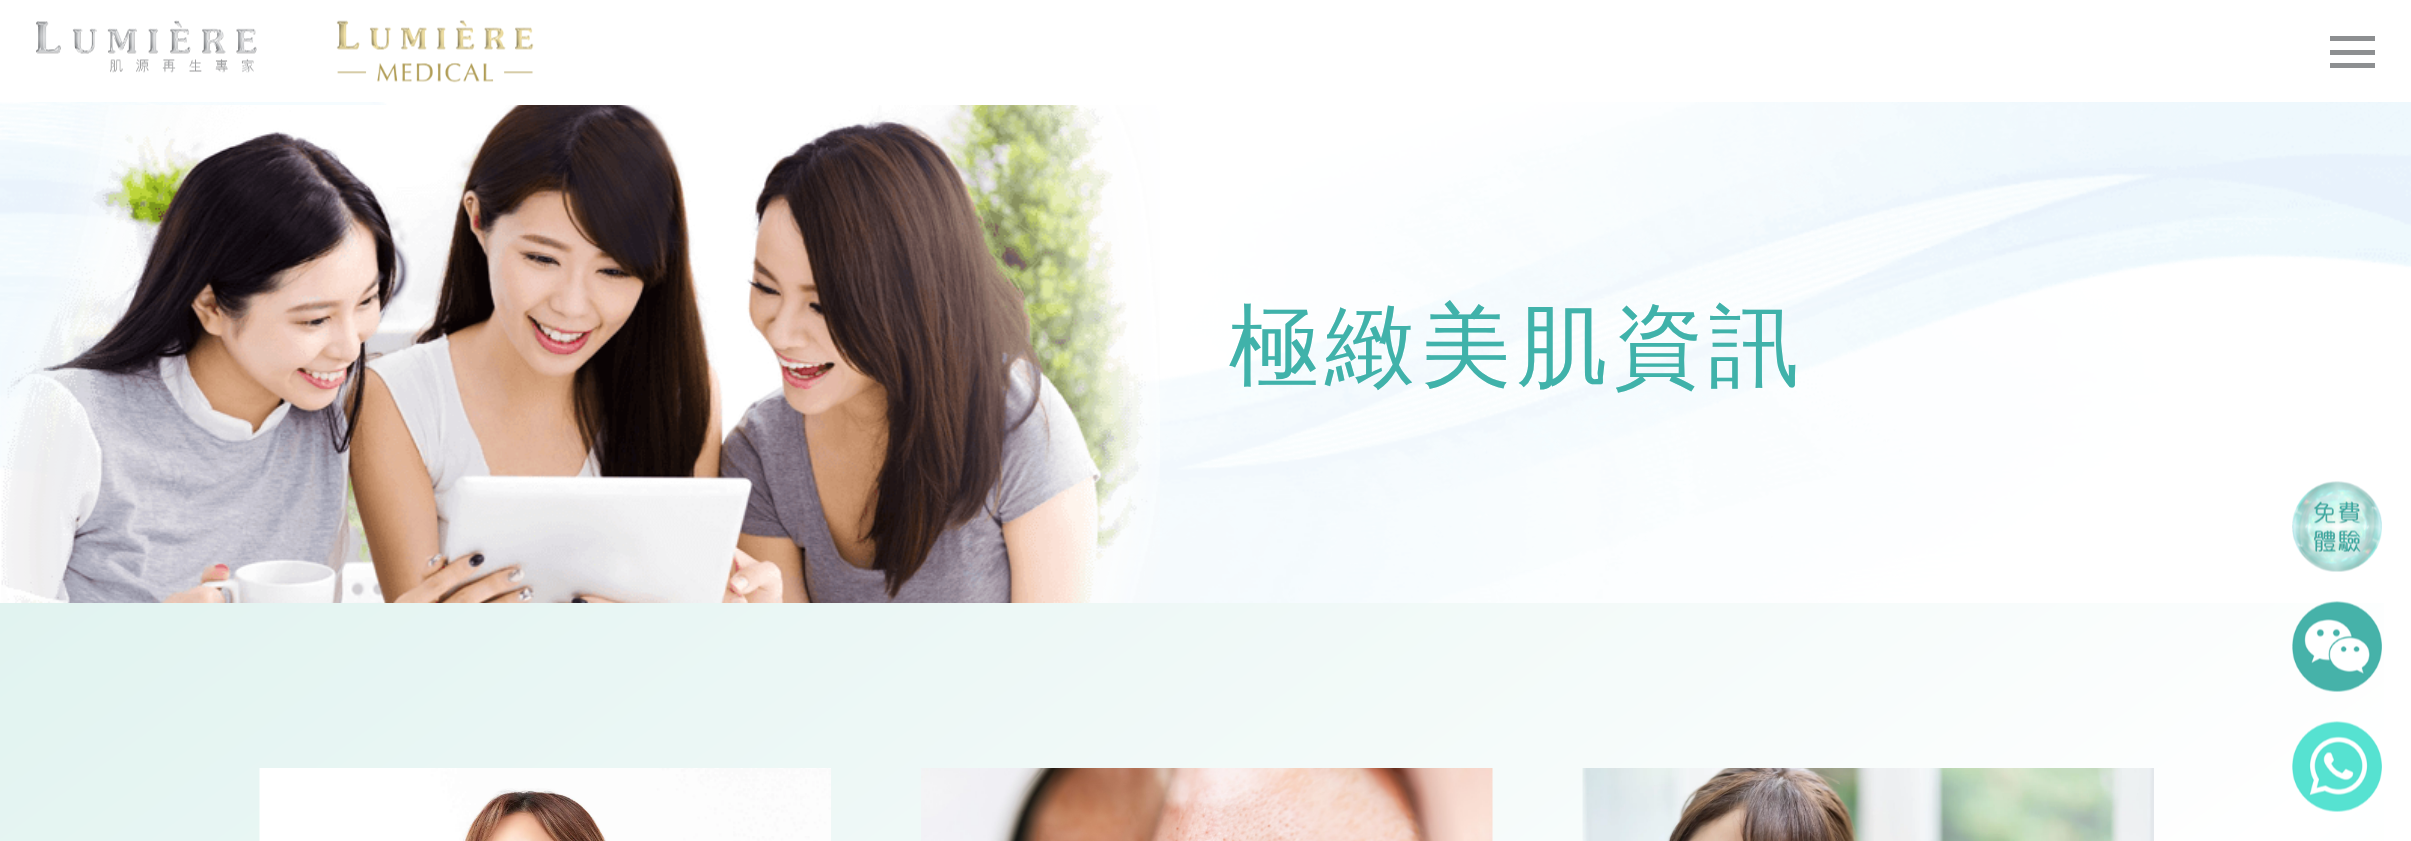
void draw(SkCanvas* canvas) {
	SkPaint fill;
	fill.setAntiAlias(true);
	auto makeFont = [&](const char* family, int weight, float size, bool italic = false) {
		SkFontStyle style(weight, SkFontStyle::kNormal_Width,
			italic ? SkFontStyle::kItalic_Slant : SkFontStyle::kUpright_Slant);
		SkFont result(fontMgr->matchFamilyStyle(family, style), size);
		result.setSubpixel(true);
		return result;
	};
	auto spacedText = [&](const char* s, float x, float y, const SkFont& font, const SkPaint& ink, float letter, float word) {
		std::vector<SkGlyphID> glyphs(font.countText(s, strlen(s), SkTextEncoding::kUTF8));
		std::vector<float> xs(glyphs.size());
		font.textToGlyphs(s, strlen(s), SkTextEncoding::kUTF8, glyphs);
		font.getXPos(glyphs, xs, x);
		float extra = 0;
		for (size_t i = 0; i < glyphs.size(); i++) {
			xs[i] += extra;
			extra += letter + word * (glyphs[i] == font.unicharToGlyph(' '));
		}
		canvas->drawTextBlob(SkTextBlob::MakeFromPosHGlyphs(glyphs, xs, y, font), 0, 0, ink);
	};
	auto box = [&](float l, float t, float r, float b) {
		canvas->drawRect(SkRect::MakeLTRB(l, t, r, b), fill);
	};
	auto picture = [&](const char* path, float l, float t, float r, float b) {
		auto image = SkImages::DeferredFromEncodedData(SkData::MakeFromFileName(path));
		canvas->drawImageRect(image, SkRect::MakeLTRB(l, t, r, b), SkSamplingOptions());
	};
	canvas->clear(0xFFFFFFFF);
	picture("image0.png", 36, 20, 257, 73);
	picture("image1.png", 336, 20, 534, 83);
	fill.setColor(0xFF8D8F91);
	box(2330, 36, 2375, 41);
	box(2330, 50, 2375, 55);
	box(2330, 63, 2375, 68);
	picture("image2.png", 0, 102, 2411, 603);
	picture("image3.png", 1, 105, 1160, 603);
	{
		const SkColor colors[] = {0xFFE1F3F0, 0xFFFFFFFF, 0xFFE1F3F0};
		const float stops[] = {0, 0.5f, 1};
		const SkPoint ends[] = {{307, 380}, {2105, 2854}};
		fill.setShader(SkGradientShader::MakeLinear(ends, colors, stops, 3, SkTileMode::kClamp));
		fill.setAlpha(255);
	}
	box(0, 603, 2384, 841);
	picture("image4.png", 259, 768, 831, 841);
	picture("image5.png", 921, 768, 1493, 841);
	picture("image6.png", 1582, 768, 2154, 841);
	picture("image7.png", 2292, 481, 2382, 572);
	picture("image8.png", 2292, 601, 2382, 692);
	picture("image9.png", 2292, 721, 2382, 812);
	auto font1 = makeFont("WenQuanYi Zen Hei", 500, 90);
	fill.setShader(nullptr);
	fill.setColor(0xFF40B2AA);
	spacedText("極緻美肌資訊", 1229, 377, font1, fill, 6, 0);
}
